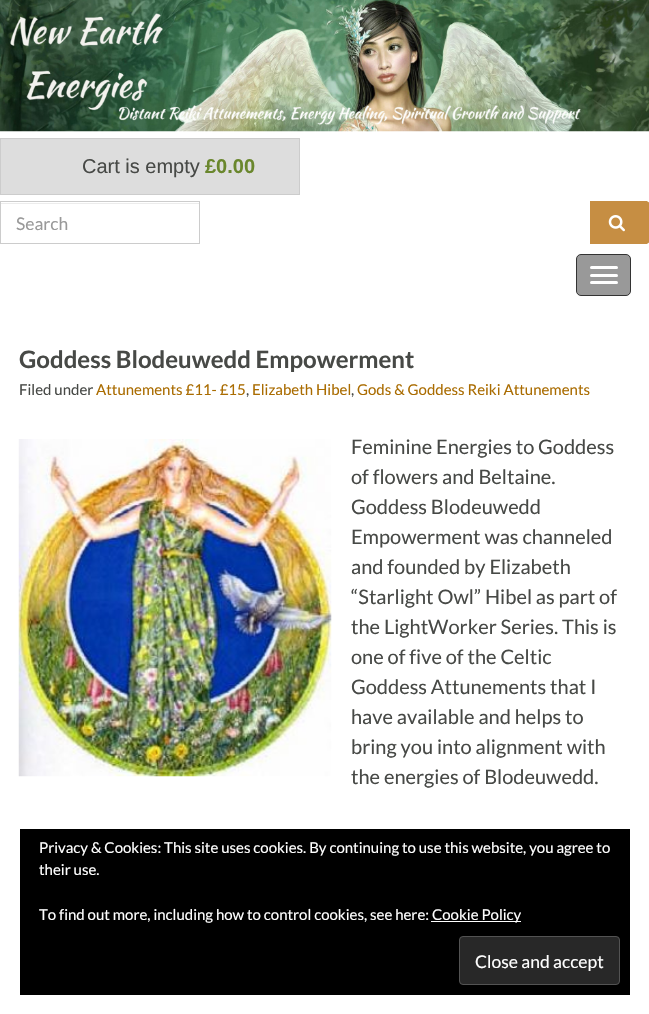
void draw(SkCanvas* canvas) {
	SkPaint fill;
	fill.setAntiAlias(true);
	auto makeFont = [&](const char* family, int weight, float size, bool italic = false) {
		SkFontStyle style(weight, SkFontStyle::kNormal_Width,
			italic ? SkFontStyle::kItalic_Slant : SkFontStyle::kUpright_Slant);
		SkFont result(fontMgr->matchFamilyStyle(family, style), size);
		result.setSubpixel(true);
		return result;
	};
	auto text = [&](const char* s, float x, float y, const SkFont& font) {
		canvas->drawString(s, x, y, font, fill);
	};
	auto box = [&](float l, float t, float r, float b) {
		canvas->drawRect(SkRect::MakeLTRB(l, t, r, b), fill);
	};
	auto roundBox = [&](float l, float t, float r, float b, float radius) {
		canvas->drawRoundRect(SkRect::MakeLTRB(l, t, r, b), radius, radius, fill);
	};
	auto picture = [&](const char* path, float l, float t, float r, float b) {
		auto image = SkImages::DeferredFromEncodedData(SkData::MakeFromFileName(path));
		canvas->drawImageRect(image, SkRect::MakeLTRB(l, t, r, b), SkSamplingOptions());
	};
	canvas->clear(0xFFFFFFFF);
	picture("image0.png", 0, 0, 649, 132);
	fill.setColor(0xFFDDDDDD);
	canvas->drawRect(SkRect::MakeLTRB(0.5f, 138.5f, 299.5f, 194.5f), fill);
	fill.setStyle(SkPaint::kStroke_Style);
	fill.setStrokeWidth(1);
	fill.setColor(0xFFCCCCCC);
	canvas->drawRect(SkRect::MakeLTRB(0.5f, 138.5f, 299.5f, 194.5f), fill);
	fill.setStyle(SkPaint::kFill_Style);
	fill.setColor(0xFFECECEC);
	box(1, 203, 199, 204);
	fill.setStyle(SkPaint::kStroke_Style);
	fill.setColor(0xFFCCCCCC);
	canvas->drawRect(SkRect::MakeLTRB(0.5f, 201.5f, 199.5f, 243.5f), fill);
	fill.setStyle(SkPaint::kFill_Style);
	fill.setColor(0xFFC68E43);
	canvas->drawPath(SkPathBuilder().moveTo(590, 201).lineTo(646, 201).cubicTo(648, 201, 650, 203, 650, 205).lineTo(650, 240).cubicTo(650, 242, 648, 244, 646, 244).lineTo(590, 244).close().detach(), fill);
	picture("image1.png", 608, 215, 625, 232);
	fill.setColor(0xFF999999);
	canvas->drawRoundRect(SkRect::MakeLTRB(576.5f, 254.5f, 630.5f, 295.5f), 4.5f, 4.5f, fill);
	fill.setStyle(SkPaint::kStroke_Style);
	fill.setColor(0xFF333333);
	canvas->drawRoundRect(SkRect::MakeLTRB(576.5f, 254.5f, 630.5f, 295.5f), 4.5f, 4.5f, fill);
	fill.setStyle(SkPaint::kFill_Style);
	fill.setColor(0xFFFFFFFF);
	roundBox(590, 266, 618, 269, 1.5f);
	roundBox(590, 274, 618, 277, 1.5f);
	roundBox(590, 281, 618, 284, 1.5f);
	picture("image2.png", 18, 439, 332, 777);
	fill.setColor(0xFF000000);
	box(20, 829, 630, 995);
	fill.setColor(0xFFFFFFFF);
	box(431, 921, 521, 922);
	fill.setColor(0xFF282828);
	canvas->drawRoundRect(SkRect::MakeLTRB(459.5f, 936.5f, 619.5f, 984.5f), 3.5f, 3.5f, fill);
	fill.setStyle(SkPaint::kStroke_Style);
	fill.setColor(0xFF535353);
	canvas->drawRoundRect(SkRect::MakeLTRB(459.5f, 936.5f, 619.5f, 984.5f), 3.5f, 3.5f, fill);
	auto font1 = makeFont("Liberation Sans", 400, 20);
	fill.setStyle(SkPaint::kFill_Style);
	fill.setColor(0xFF474946);
	text("Cart is empty", 82, 173, font1);
	auto font2 = makeFont("Liberation Sans", 700, 20);
	fill.setColor(0xFF6A872D);
	text("£0.00", 205, 173, font2);
	auto font3 = makeFont("Lato", 400, 17.5f);
	fill.setColor(0xFF999999);
	text("Search", 16, 230, font3);
	auto font4 = makeFont("Lato", 700, 24);
	fill.setColor(0xFF474946);
	text("Goddess Blodeuwedd Empowerment", 19, 368, font4);
	auto font5 = makeFont("Lato", 400, 15);
	text("Filed under", 19, 395, font5);
	fill.setColor(0xFFAA6C01);
	text("Attunements £11- £15", 96, 395, font5);
	fill.setColor(0xFF474946);
	text(",", 246, 395, font5);
	fill.setColor(0xFFAA6C01);
	text("Elizabeth Hibel", 252, 395, font5);
	fill.setColor(0xFF474946);
	text(",", 351, 395, font5);
	fill.setColor(0xFFAA6C01);
	text("Gods & Goddess Reiki Attunements", 357, 395, font5);
	auto font6 = makeFont("Lato", 400, 20);
	fill.setColor(0xFF474946);
	text("Feminine Energies to Goddess", 351, 454, font6);
	text("of flowers and Beltaine.", 351, 484, font6);
	text("Goddess Blodeuwedd", 351, 514, font6);
	text("Empowerment was channeled", 351, 544, font6);
	text("and founded by Elizabeth", 351, 574, font6);
	text("“Starlight Owl” Hibel as part of", 351, 604, font6);
	text("the LightWorker Series. This is", 351, 634, font6);
	text("one of five of the Celtic", 351, 664, font6);
	text("Goddess Attunements that I", 351, 694, font6);
	text("have available and helps to", 351, 724, font6);
	text("bring you into alignment with", 351, 754, font6);
	text("the energies of Blodeuwedd.", 351, 784, font6);
	fill.setColor(0xFFFFFFFF);
	text("Privacy & Cookies: This site uses cookies. By continuing to use this website, you agree to", 39, 853, font5);
	text("their use.", 39, 875, font5);
	text("To find out more, including how to control cookies, see here:", 39, 920, font5);
	text("Cookie Policy", 432, 920, font5);
	text("Close and accept", 475, 968, font3);
}
